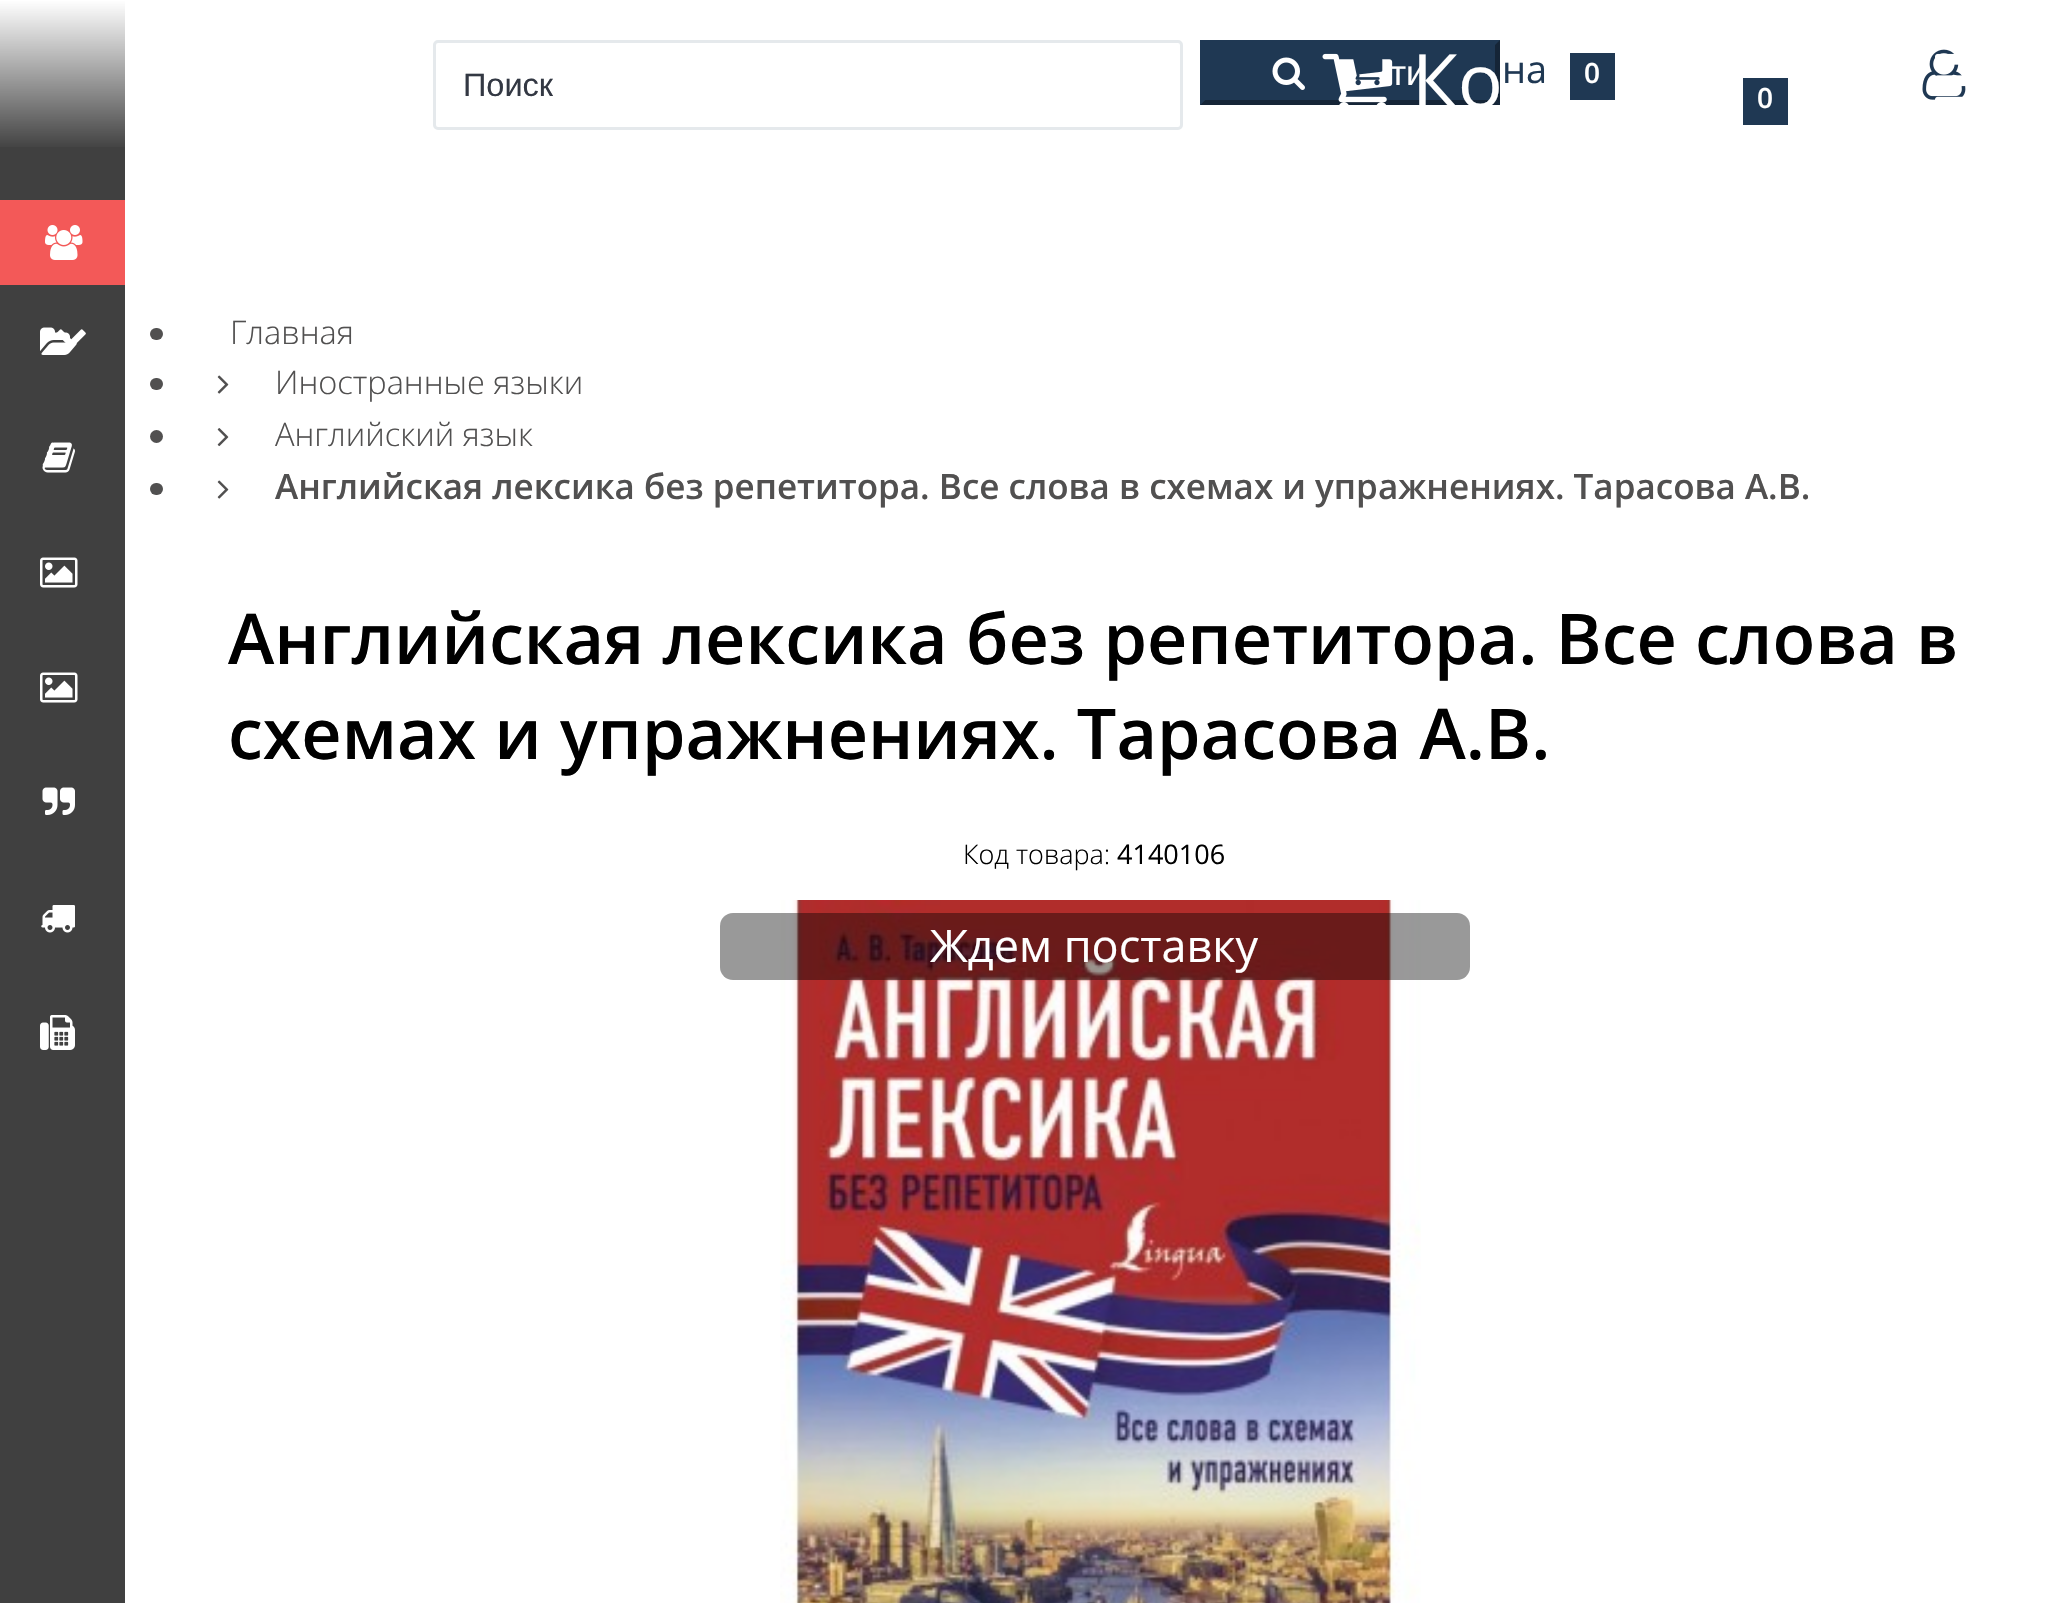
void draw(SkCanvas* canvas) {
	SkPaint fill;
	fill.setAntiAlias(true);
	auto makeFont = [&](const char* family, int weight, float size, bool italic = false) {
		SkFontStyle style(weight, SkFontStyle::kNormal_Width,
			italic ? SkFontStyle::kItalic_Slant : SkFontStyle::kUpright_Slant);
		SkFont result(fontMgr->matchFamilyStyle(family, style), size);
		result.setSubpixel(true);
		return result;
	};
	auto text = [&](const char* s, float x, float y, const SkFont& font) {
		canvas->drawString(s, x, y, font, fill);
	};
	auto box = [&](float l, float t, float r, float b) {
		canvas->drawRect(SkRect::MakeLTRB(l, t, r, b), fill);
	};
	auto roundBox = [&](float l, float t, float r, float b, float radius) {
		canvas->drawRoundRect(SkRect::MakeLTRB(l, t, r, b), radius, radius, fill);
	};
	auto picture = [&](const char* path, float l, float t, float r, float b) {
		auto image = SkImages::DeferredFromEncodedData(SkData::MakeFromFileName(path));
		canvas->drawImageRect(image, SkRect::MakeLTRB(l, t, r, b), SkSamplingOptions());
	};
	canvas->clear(0xFFFFFFFF);
	fill.setColor(0xFF404040);
	box(0, 1, 125, 1603);
	{
		const SkColor colors[] = {0xFFFFFFFF, 0x00FFFFFF};
		const float stops[] = {0, 1};
		const SkPoint ends[] = {{1031, 0}, {1031, 150}};
		fill.setShader(SkGradientShader::MakeLinear(ends, colors, stops, 2, SkTileMode::kClamp));
		fill.setAlpha(255);
	}
	box(0, 1, 125, 147);
	fill.setStyle(SkPaint::kStroke_Style);
	fill.setStrokeWidth(3);
	fill.setShader(nullptr);
	fill.setColor(0xFFE5E9EC);
	canvas->drawRoundRect(SkRect::MakeLTRB(434.5f, 41.5f, 1181.5f, 128.5f), 3.5f, 3.5f, fill);
	fill.setStyle(SkPaint::kFill_Style);
	fill.setColor(0xFF1F3853);
	box(1200, 40, 1500, 105);
	fill.setColor(0xFF152537);
	canvas->drawPath(SkPathBuilder().moveTo(1500, 40).lineTo(1500, 105).lineTo(1495, 100).lineTo(1495, 45).close().detach(), fill);
	canvas->drawPath(SkPathBuilder().moveTo(1500, 105).lineTo(1200, 105).lineTo(1205, 100).lineTo(1495, 100).close().detach(), fill);
	fill.setColor(0xFF1F3853);
	canvas->drawPath(SkPathBuilder().moveTo(1200, 105).lineTo(1200, 40).lineTo(1205, 45).lineTo(1205, 100).close().detach(), fill);
	picture("image0.png", 1272, 57, 1305, 90);
	box(1743, 78, 1788, 125);
	picture("image2.png", 1922, 49, 1966, 100);
	box(1570, 53, 1615, 100);
	picture("image4.png", 1935, 53, 1966, 100);
	fill.setColor(0xFFF35958);
	box(0, 200, 125, 285);
	picture("image5.png", 45, 225, 83, 260);
	picture("image6.png", 40, 327, 77, 355);
	picture("image7.png", 56, 329, 86, 344);
	picture("image8.png", 42, 442, 75, 473);
	picture("image9.png", 40, 557, 78, 588);
	picture("image9.png", 40, 672, 78, 703);
	picture("image10.png", 42, 787, 75, 815);
	picture("image11.png", 41, 905, 75, 933);
	picture("image12.png", 40, 1015, 75, 1050);
	fill.setColor(0xFF515050);
	roundBox(150, 328, 163, 340, 6);
	roundBox(150, 378, 163, 390, 6);
	picture("image13.png", 217, 375, 229, 394);
	canvas->drawCircle(156.5f, 436.5f, 6.5f, fill);
	picture("image14.png", 217, 428, 229, 447);
	roundBox(150, 483, 163, 495, 6);
	picture("image13.png", 217, 480, 229, 499);
	picture("image15.png", 780, 900, 1421, 1603);
	fill.setColor(0x66000000);
	roundBox(720, 913, 1470, 980, 13);
	auto font1 = makeFont("Liberation Sans", 400, 32.5f);
	fill.setColor(0xFF333843);
	text("Поиск", 463, 96, font1);
	auto font2 = makeFont("Liberation Sans", 400, 35);
	fill.setColor(0xFFFFFFFF);
	text("ти", 1390, 85, font2);
	picture("image1.png", 1322, 53, 1393, 105);
	auto font3 = makeFont("Open Sans", 400, 75);
	text("Ко", 1412, 108, font3);
	auto font4 = makeFont("Open Sans", 600, 28);
	text("0", 1757, 108, font4);
	picture("image3.png", 1353, 59, 1383, 86);
	auto font5 = makeFont("Open Sans", 400, 38);
	fill.setColor(0xFF1F3853);
	text("на", 1502, 83, font5);
	fill.setColor(0xFFFFFFFF);
	text("0", 1584, 83, font4);
	auto font6 = makeFont("Open Sans", 300, 32.5f);
	fill.setColor(0xFF515050);
	text("Главная", 230, 344, font6);
	text("Иностранные языки", 275, 394, font6);
	text("Английский язык", 275, 446, font6);
	auto font7 = makeFont("Open Sans", 600, 35);
	text("Английская лексика без репетитора. Все слова в схемах и упражнениях. Тарасова А.В.", 275, 499, font7);
	auto font8 = makeFont("Open Sans", 600, 70);
	fill.setColor(0xFF000000);
	text("Английская лексика без репетитора. Все слова в", 228, 664, font8);
	text("схемах и упражнениях. Тарасова А.В.", 228, 759, font8);
	auto font9 = makeFont("Open Sans", 300, 27);
	text("Код товара:", 963, 864, font9);
	auto font10 = makeFont("Open Sans", 400, 27);
	text("4140106", 1117, 864, font10);
	auto font11 = makeFont("Open Sans", 400, 45);
	fill.setColor(0xFFFFFFFF);
	text("Ждем поставку", 930, 962, font11);
}
